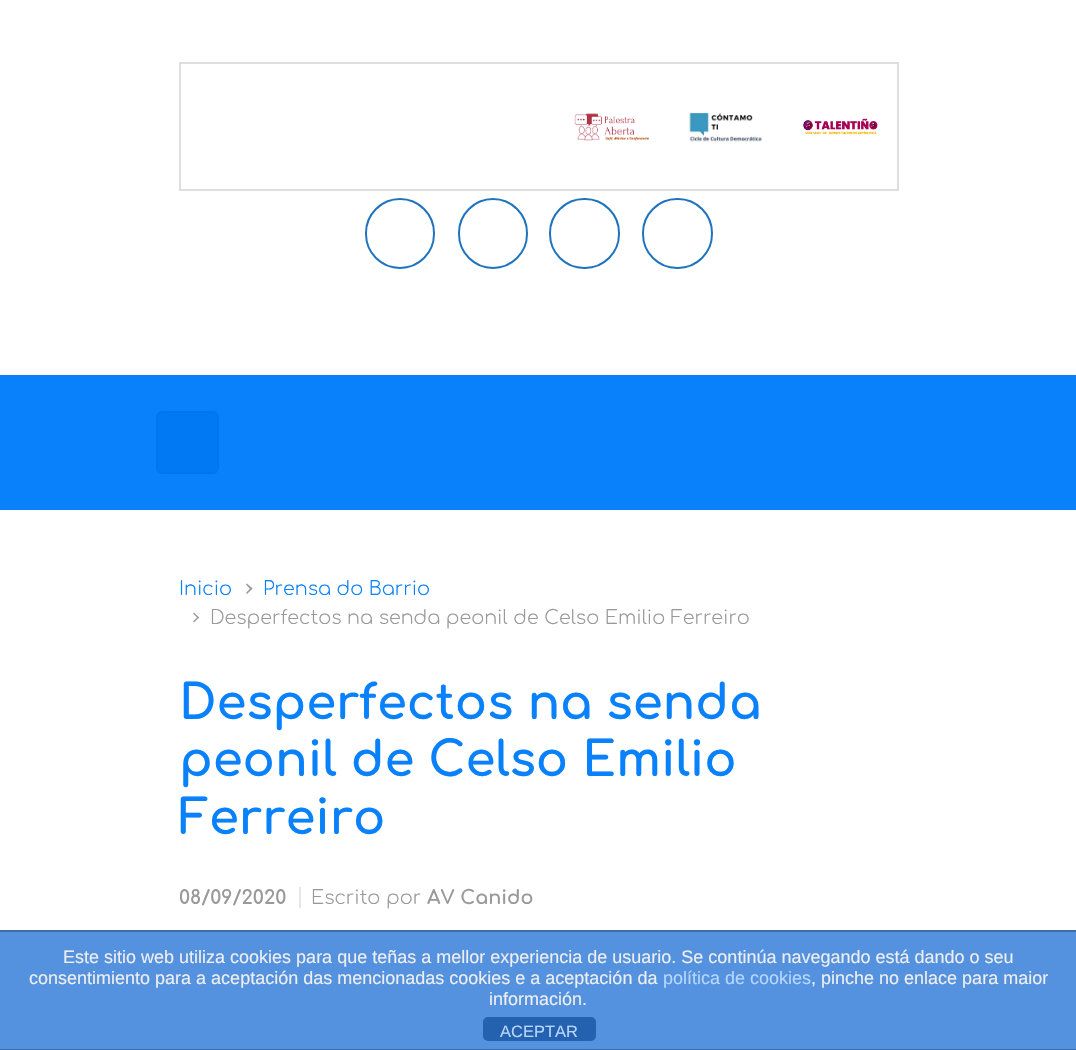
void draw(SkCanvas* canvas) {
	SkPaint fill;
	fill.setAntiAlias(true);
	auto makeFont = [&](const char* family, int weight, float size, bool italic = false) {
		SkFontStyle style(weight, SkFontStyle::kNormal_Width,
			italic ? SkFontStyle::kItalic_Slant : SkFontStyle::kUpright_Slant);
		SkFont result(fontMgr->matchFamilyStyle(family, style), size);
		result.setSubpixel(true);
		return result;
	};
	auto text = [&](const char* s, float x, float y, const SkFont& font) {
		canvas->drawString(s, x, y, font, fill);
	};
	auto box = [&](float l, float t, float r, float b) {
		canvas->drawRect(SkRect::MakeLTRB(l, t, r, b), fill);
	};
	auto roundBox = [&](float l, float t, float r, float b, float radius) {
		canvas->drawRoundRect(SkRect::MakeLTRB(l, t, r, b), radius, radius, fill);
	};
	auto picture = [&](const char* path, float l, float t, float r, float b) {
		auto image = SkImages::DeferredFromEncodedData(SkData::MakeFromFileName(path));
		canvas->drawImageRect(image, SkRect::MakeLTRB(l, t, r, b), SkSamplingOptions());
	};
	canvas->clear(0xFFFFFFFF);
	fill.setColor(0xFFE0DDDD);
	box(179, 62, 899, 64);
	box(897, 62, 899, 191);
	box(179, 189, 899, 191);
	box(179, 62, 181, 191);
	picture("image0.png", 574, 113, 650, 141);
	picture("image1.png", 688, 112, 762, 142);
	picture("image2.png", 803, 118, 878, 135);
	fill.setStyle(SkPaint::kStroke_Style);
	fill.setStrokeWidth(2);
	fill.setColor(0xFF1E73BE);
	canvas->drawRoundRect(SkRect::MakeLTRB(366, 199, 434, 268), 34, 34, fill);
	canvas->drawRoundRect(SkRect::MakeLTRB(459, 199, 527, 268), 34, 34, fill);
	canvas->drawRoundRect(SkRect::MakeLTRB(550, 199, 619, 268), 34, 34, fill);
	canvas->drawRoundRect(SkRect::MakeLTRB(643, 199, 712, 268), 34, 34, fill);
	fill.setStyle(SkPaint::kFill_Style);
	fill.setColor(0xFF0981FA);
	box(0, 375, 1076, 510);
	fill.setColor(0xFF0179F2);
	canvas->drawRoundRect(SkRect::MakeLTRB(157, 412, 218, 473), 5, 5, fill);
	fill.setStyle(SkPaint::kStroke_Style);
	fill.setColor(0xFF0075EE);
	canvas->drawRoundRect(SkRect::MakeLTRB(157, 412, 218, 473), 5, 5, fill);
	fill.setStyle(SkPaint::kFill_Style);
	fill.setColor(0xFF999999);
	canvas->drawPath(SkPathBuilder().moveTo(246, 584.5f).lineTo(247, 583.5f).lineTo(252.5f, 588.5f).lineTo(251, 590).close().detach(), fill);
	fill.setColor(0xFFE6E6E6);
	box(299, 887, 301, 908);
	fill.setColor(0xFF5492E0);
	box(0, 932, 1076, 1049);
	fill.setColor(0xFF3F6DA7);
	box(0, 930, 1076, 932);
	box(0, 1049, 1076, 1050);
	fill.setColor(0xFF2462B0);
	roundBox(483, 1017, 596, 1041, 5);
	auto font1 = makeFont("Comfortaa", 300, 19.2f);
	fill.setColor(0xFF0981FA);
	text("Inicio", 179, 595, font1);
	fill.setColor(0xFF999999);
	canvas->drawPath(SkPathBuilder().moveTo(246, 593).lineTo(251, 587.5f).lineTo(252.5f, 588.5f).lineTo(247, 594).close().moveTo(193, 613.5f).lineTo(194, 612.5f).lineTo(199, 617.5f).lineTo(198, 618.5f).close().detach(), fill);
	fill.setColor(0xFF0981FA);
	text("Prensa do Barrio", 263, 595, font1);
	fill.setColor(0xFF999999);
	canvas->drawPath(SkPathBuilder().moveTo(193, 621.5f).lineTo(198, 616.5f).lineTo(199, 617.5f).lineTo(194, 622.5f).close().detach(), fill);
	text("Desperfectos na senda peonil de Celso Emilio Ferreiro", 210, 624, font1);
	auto font2 = makeFont("Comfortaa", 700, 48);
	fill.setColor(0xFF0981FA);
	text("Desperfectos na senda", 179, 719, font2);
	text("peonil de Celso Emilio", 179, 776, font2);
	text("Ferreiro", 179, 834, font2);
	auto font3 = makeFont("Comfortaa", 700, 19.2f);
	fill.setColor(0xFF999999);
	text("08/09/2020", 179, 904, font3);
	text("Escrito por", 311, 904, font1);
	text("AV Canido", 427, 904, font3);
	auto font4 = makeFont("Liberation Sans", 400, 18);
	fill.setColor(0xFFEEEEEE);
	text("Este sitio web utiliza cookies para que teñas a mellor experiencia de usuario. Se continúa navegando está dando o seu", 63, 963, font4);
	text("consentimiento para a aceptación das mencionadas cookies e a aceptación da", 29, 984, font4);
	fill.setColor(0xFFB7D7FF);
	text("política de cookies", 663, 984, font4);
	fill.setColor(0xFFEEEEEE);
	text(", pinche no enlace para maior", 811, 984, font4);
	text("información.", 489, 1005, font4);
	auto font5 = makeFont("Liberation Sans", 400, 16.5f);
	fill.setColor(0xFFB7D7FF);
	text("ACEPTAR", 500, 1037, font5);
}
